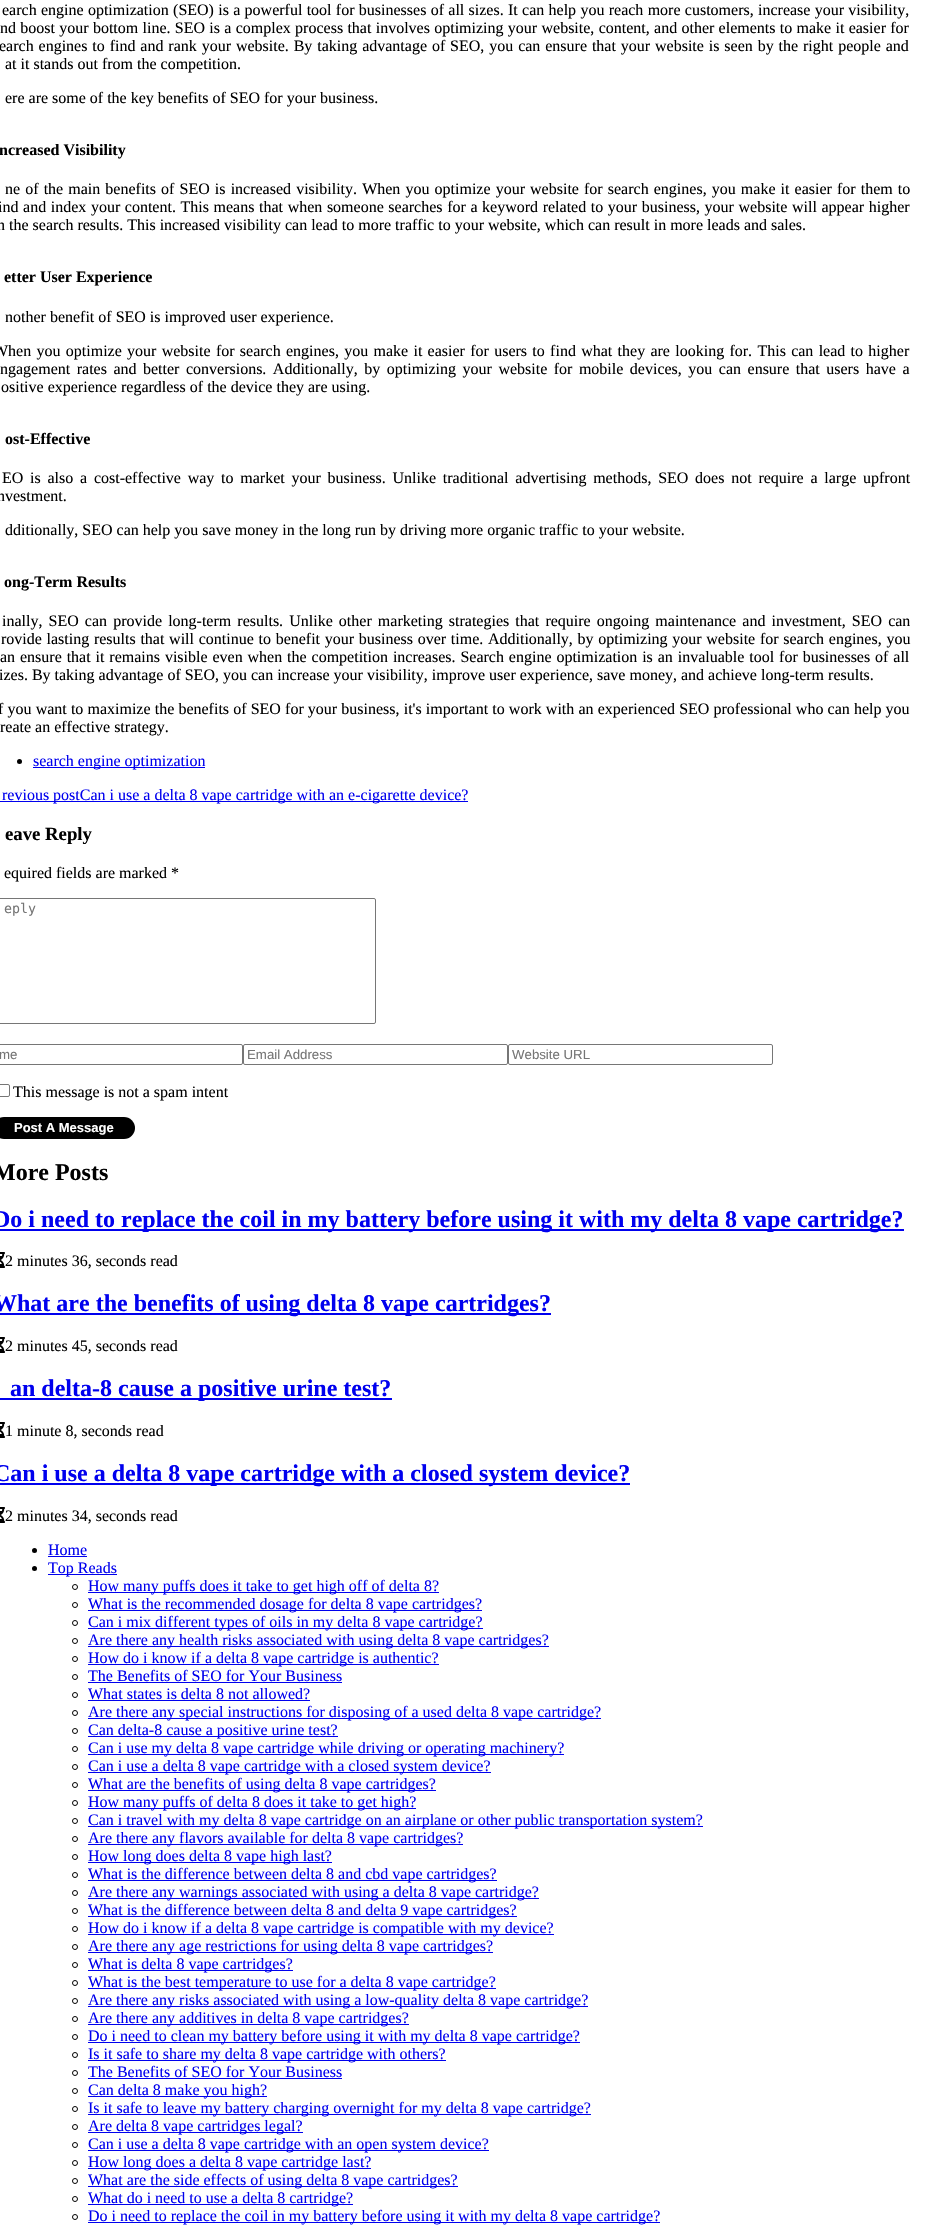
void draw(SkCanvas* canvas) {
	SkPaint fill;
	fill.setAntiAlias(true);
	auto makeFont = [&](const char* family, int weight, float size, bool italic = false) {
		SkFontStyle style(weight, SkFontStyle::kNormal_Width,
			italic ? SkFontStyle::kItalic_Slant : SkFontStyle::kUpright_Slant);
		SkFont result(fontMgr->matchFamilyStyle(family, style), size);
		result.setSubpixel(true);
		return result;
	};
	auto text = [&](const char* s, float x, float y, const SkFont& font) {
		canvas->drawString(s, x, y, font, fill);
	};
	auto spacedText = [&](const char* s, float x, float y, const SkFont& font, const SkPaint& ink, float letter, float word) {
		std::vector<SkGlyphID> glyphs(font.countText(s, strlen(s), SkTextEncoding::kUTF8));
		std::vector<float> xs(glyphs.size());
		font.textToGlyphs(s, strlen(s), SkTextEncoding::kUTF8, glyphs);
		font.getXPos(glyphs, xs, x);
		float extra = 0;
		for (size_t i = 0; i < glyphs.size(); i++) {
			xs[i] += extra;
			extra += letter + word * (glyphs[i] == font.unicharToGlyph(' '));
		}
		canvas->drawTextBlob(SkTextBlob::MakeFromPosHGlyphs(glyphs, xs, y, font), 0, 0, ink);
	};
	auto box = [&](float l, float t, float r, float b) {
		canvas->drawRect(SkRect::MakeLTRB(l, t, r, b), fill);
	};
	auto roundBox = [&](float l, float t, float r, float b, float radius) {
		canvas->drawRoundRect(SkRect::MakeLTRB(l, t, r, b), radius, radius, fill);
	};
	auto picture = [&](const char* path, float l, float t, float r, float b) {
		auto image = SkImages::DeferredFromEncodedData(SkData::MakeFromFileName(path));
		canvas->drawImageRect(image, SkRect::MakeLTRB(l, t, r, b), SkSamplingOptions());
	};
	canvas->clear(0xFFFFFFFF);
	fill.setColor(0xFF000000);
	canvas->drawCircle(19.5f, 761.5f, 2.5f, fill);
	fill.setColor(0xFF0000EE);
	box(33, 767, 205, 768);
	box(0, 801, 468, 802);
	fill.setStyle(SkPaint::kStroke_Style);
	fill.setStrokeWidth(1);
	fill.setColor(0xFF767676);
	canvas->drawRoundRect(SkRect::MakeLTRB(-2.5f, 898.5f, 375.5f, 1023.5f), 1.5f, 1.5f, fill);
	canvas->drawRoundRect(SkRect::MakeLTRB(-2.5f, 1044.5f, 242.5f, 1064.5f), 1.5f, 1.5f, fill);
	canvas->drawRoundRect(SkRect::MakeLTRB(243.5f, 1044.5f, 507.5f, 1064.5f), 1.5f, 1.5f, fill);
	canvas->drawRoundRect(SkRect::MakeLTRB(508.5f, 1044.5f, 772.5f, 1064.5f), 1.5f, 1.5f, fill);
	canvas->drawRoundRect(SkRect::MakeLTRB(-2.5f, 1084.5f, 9.5f, 1096.5f), 1.5f, 1.5f, fill);
	fill.setStyle(SkPaint::kFill_Style);
	fill.setColor(0xFF000000);
	roundBox(-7, 1117, 135, 1139, 11);
	fill.setColor(0xFF0000EE);
	box(0, 1229, 904, 1231);
	picture("image0.png", 0, 1252, 5, 1268);
	box(0, 1313, 551, 1315);
	picture("image0.png", 0, 1337, 5, 1353);
	box(0, 1398, 392, 1400);
	picture("image0.png", 0, 1422, 5, 1438);
	box(0, 1483, 630, 1485);
	picture("image0.png", 0, 1507, 5, 1523);
	fill.setColor(0xFF000000);
	canvas->drawCircle(34.5f, 1550.5f, 2.5f, fill);
	fill.setColor(0xFF0000EE);
	box(48, 1556, 87, 1557);
	fill.setColor(0xFF000000);
	canvas->drawCircle(34.5f, 1568.5f, 2.5f, fill);
	fill.setColor(0xFF0000EE);
	box(48, 1574, 117, 1575);
	fill.setStyle(SkPaint::kStroke_Style);
	fill.setColor(0xFF000000);
	canvas->drawCircle(75, 1587, 2.5f, fill);
	fill.setStyle(SkPaint::kFill_Style);
	fill.setColor(0xFF0000EE);
	box(88, 1592, 439, 1593);
	fill.setStyle(SkPaint::kStroke_Style);
	fill.setColor(0xFF000000);
	canvas->drawCircle(75, 1605, 2.5f, fill);
	fill.setStyle(SkPaint::kFill_Style);
	fill.setColor(0xFF0000EE);
	box(88, 1610, 482, 1611);
	fill.setStyle(SkPaint::kStroke_Style);
	fill.setColor(0xFF000000);
	canvas->drawCircle(75, 1623, 2.5f, fill);
	fill.setStyle(SkPaint::kFill_Style);
	fill.setColor(0xFF0000EE);
	box(88, 1628, 483, 1629);
	fill.setStyle(SkPaint::kStroke_Style);
	fill.setColor(0xFF000000);
	canvas->drawCircle(75, 1641, 2.5f, fill);
	fill.setStyle(SkPaint::kFill_Style);
	fill.setColor(0xFF0000EE);
	box(88, 1646, 549, 1647);
	fill.setStyle(SkPaint::kStroke_Style);
	fill.setColor(0xFF000000);
	canvas->drawCircle(75, 1659, 2.5f, fill);
	fill.setStyle(SkPaint::kFill_Style);
	fill.setColor(0xFF0000EE);
	box(88, 1664, 439, 1665);
	fill.setStyle(SkPaint::kStroke_Style);
	fill.setColor(0xFF000000);
	canvas->drawCircle(75, 1677, 2.5f, fill);
	fill.setStyle(SkPaint::kFill_Style);
	fill.setColor(0xFF0000EE);
	box(88, 1682, 342, 1683);
	fill.setStyle(SkPaint::kStroke_Style);
	fill.setColor(0xFF000000);
	canvas->drawCircle(75, 1695, 2.5f, fill);
	fill.setStyle(SkPaint::kFill_Style);
	fill.setColor(0xFF0000EE);
	box(88, 1700, 310, 1701);
	fill.setStyle(SkPaint::kStroke_Style);
	fill.setColor(0xFF000000);
	canvas->drawCircle(75, 1713, 2.5f, fill);
	fill.setStyle(SkPaint::kFill_Style);
	fill.setColor(0xFF0000EE);
	box(88, 1718, 601, 1719);
	fill.setStyle(SkPaint::kStroke_Style);
	fill.setColor(0xFF000000);
	canvas->drawCircle(75, 1731, 2.5f, fill);
	fill.setStyle(SkPaint::kFill_Style);
	fill.setColor(0xFF0000EE);
	box(88, 1736, 338, 1737);
	fill.setStyle(SkPaint::kStroke_Style);
	fill.setColor(0xFF000000);
	canvas->drawCircle(75, 1749, 2.5f, fill);
	fill.setStyle(SkPaint::kFill_Style);
	fill.setColor(0xFF0000EE);
	box(88, 1754, 564, 1755);
	fill.setStyle(SkPaint::kStroke_Style);
	fill.setColor(0xFF000000);
	canvas->drawCircle(75, 1767, 2.5f, fill);
	fill.setStyle(SkPaint::kFill_Style);
	fill.setColor(0xFF0000EE);
	box(88, 1772, 491, 1773);
	fill.setStyle(SkPaint::kStroke_Style);
	fill.setColor(0xFF000000);
	canvas->drawCircle(75, 1785, 2.5f, fill);
	fill.setStyle(SkPaint::kFill_Style);
	fill.setColor(0xFF0000EE);
	box(88, 1790, 436, 1791);
	fill.setStyle(SkPaint::kStroke_Style);
	fill.setColor(0xFF000000);
	canvas->drawCircle(75, 1803, 2.5f, fill);
	fill.setStyle(SkPaint::kFill_Style);
	fill.setColor(0xFF0000EE);
	box(88, 1808, 416, 1809);
	fill.setStyle(SkPaint::kStroke_Style);
	fill.setColor(0xFF000000);
	canvas->drawCircle(75, 1821, 2.5f, fill);
	fill.setStyle(SkPaint::kFill_Style);
	fill.setColor(0xFF0000EE);
	box(88, 1826, 703, 1827);
	fill.setStyle(SkPaint::kStroke_Style);
	fill.setColor(0xFF000000);
	canvas->drawCircle(75, 1839, 2.5f, fill);
	fill.setStyle(SkPaint::kFill_Style);
	fill.setColor(0xFF0000EE);
	box(88, 1844, 463, 1845);
	fill.setStyle(SkPaint::kStroke_Style);
	fill.setColor(0xFF000000);
	canvas->drawCircle(75, 1857, 2.5f, fill);
	fill.setStyle(SkPaint::kFill_Style);
	fill.setColor(0xFF0000EE);
	box(88, 1862, 332, 1863);
	fill.setStyle(SkPaint::kStroke_Style);
	fill.setColor(0xFF000000);
	canvas->drawCircle(75, 1875, 2.5f, fill);
	fill.setStyle(SkPaint::kFill_Style);
	fill.setColor(0xFF0000EE);
	box(88, 1880, 497, 1881);
	fill.setStyle(SkPaint::kStroke_Style);
	fill.setColor(0xFF000000);
	canvas->drawCircle(75, 1893, 2.5f, fill);
	fill.setStyle(SkPaint::kFill_Style);
	fill.setColor(0xFF0000EE);
	box(88, 1898, 539, 1899);
	fill.setStyle(SkPaint::kStroke_Style);
	fill.setColor(0xFF000000);
	canvas->drawCircle(75, 1911, 2.5f, fill);
	fill.setStyle(SkPaint::kFill_Style);
	fill.setColor(0xFF0000EE);
	box(88, 1916, 517, 1917);
	fill.setStyle(SkPaint::kStroke_Style);
	fill.setColor(0xFF000000);
	canvas->drawCircle(75, 1929, 2.5f, fill);
	fill.setStyle(SkPaint::kFill_Style);
	fill.setColor(0xFF0000EE);
	box(88, 1934, 554, 1935);
	fill.setStyle(SkPaint::kStroke_Style);
	fill.setColor(0xFF000000);
	canvas->drawCircle(75, 1947, 2.5f, fill);
	fill.setStyle(SkPaint::kFill_Style);
	fill.setColor(0xFF0000EE);
	box(88, 1952, 493, 1953);
	fill.setStyle(SkPaint::kStroke_Style);
	fill.setColor(0xFF000000);
	canvas->drawCircle(75, 1965, 2.5f, fill);
	fill.setStyle(SkPaint::kFill_Style);
	fill.setColor(0xFF0000EE);
	box(88, 1970, 293, 1971);
	fill.setStyle(SkPaint::kStroke_Style);
	fill.setColor(0xFF000000);
	canvas->drawCircle(75, 1983, 2.5f, fill);
	fill.setStyle(SkPaint::kFill_Style);
	fill.setColor(0xFF0000EE);
	box(88, 1988, 496, 1989);
	fill.setStyle(SkPaint::kStroke_Style);
	fill.setColor(0xFF000000);
	canvas->drawCircle(75, 2001, 2.5f, fill);
	fill.setStyle(SkPaint::kFill_Style);
	fill.setColor(0xFF0000EE);
	box(88, 2006, 588, 2007);
	fill.setStyle(SkPaint::kStroke_Style);
	fill.setColor(0xFF000000);
	canvas->drawCircle(75, 2019, 2.5f, fill);
	fill.setStyle(SkPaint::kFill_Style);
	fill.setColor(0xFF0000EE);
	box(88, 2024, 409, 2025);
	fill.setStyle(SkPaint::kStroke_Style);
	fill.setColor(0xFF000000);
	canvas->drawCircle(75, 2037, 2.5f, fill);
	fill.setStyle(SkPaint::kFill_Style);
	fill.setColor(0xFF0000EE);
	box(88, 2042, 580, 2043);
	fill.setStyle(SkPaint::kStroke_Style);
	fill.setColor(0xFF000000);
	canvas->drawCircle(75, 2055, 2.5f, fill);
	fill.setStyle(SkPaint::kFill_Style);
	fill.setColor(0xFF0000EE);
	box(88, 2060, 446, 2061);
	fill.setStyle(SkPaint::kStroke_Style);
	fill.setColor(0xFF000000);
	canvas->drawCircle(75, 2073, 2.5f, fill);
	fill.setStyle(SkPaint::kFill_Style);
	fill.setColor(0xFF0000EE);
	box(88, 2078, 342, 2079);
	fill.setStyle(SkPaint::kStroke_Style);
	fill.setColor(0xFF000000);
	canvas->drawCircle(75, 2091, 2.5f, fill);
	fill.setStyle(SkPaint::kFill_Style);
	fill.setColor(0xFF0000EE);
	box(88, 2096, 267, 2097);
	fill.setStyle(SkPaint::kStroke_Style);
	fill.setColor(0xFF000000);
	canvas->drawCircle(75, 2109, 2.5f, fill);
	fill.setStyle(SkPaint::kFill_Style);
	fill.setColor(0xFF0000EE);
	box(88, 2114, 591, 2115);
	fill.setStyle(SkPaint::kStroke_Style);
	fill.setColor(0xFF000000);
	canvas->drawCircle(75, 2127, 2.5f, fill);
	fill.setStyle(SkPaint::kFill_Style);
	fill.setColor(0xFF0000EE);
	box(88, 2132, 303, 2133);
	fill.setStyle(SkPaint::kStroke_Style);
	fill.setColor(0xFF000000);
	canvas->drawCircle(75, 2145, 2.5f, fill);
	fill.setStyle(SkPaint::kFill_Style);
	fill.setColor(0xFF0000EE);
	box(88, 2150, 489, 2151);
	fill.setStyle(SkPaint::kStroke_Style);
	fill.setColor(0xFF000000);
	canvas->drawCircle(75, 2163, 2.5f, fill);
	fill.setStyle(SkPaint::kFill_Style);
	fill.setColor(0xFF0000EE);
	box(88, 2168, 371, 2169);
	fill.setStyle(SkPaint::kStroke_Style);
	fill.setColor(0xFF000000);
	canvas->drawCircle(75, 2181, 2.5f, fill);
	fill.setStyle(SkPaint::kFill_Style);
	fill.setColor(0xFF0000EE);
	box(88, 2186, 458, 2187);
	fill.setStyle(SkPaint::kStroke_Style);
	fill.setColor(0xFF000000);
	canvas->drawCircle(75, 2199, 2.5f, fill);
	fill.setStyle(SkPaint::kFill_Style);
	fill.setColor(0xFF0000EE);
	box(88, 2204, 353, 2205);
	fill.setStyle(SkPaint::kStroke_Style);
	fill.setColor(0xFF000000);
	canvas->drawCircle(75, 2217, 2.5f, fill);
	fill.setStyle(SkPaint::kFill_Style);
	fill.setColor(0xFF0000EE);
	box(88, 2222, 660, 2223);
	auto font1 = makeFont("Liberation Serif", 400, 16);
	fill.setColor(0xFF000000);
	spacedText("earch engine optimization (SEO) is a powerful tool for businesses of all sizes. It can help you reach more customers, increase your visibility,", 2, 15, font1, fill, 0, 0.3f);
	spacedText("nd boost your bottom line. SEO is a complex process that involves optimizing your website, content, and other elements to make it easier for", 0, 33, font1, fill, 0, 0.3f);
	spacedText("earch engines to find and rank your website. By taking advantage of SEO, you can ensure that your website is seen by the right people and", -1, 51, font1, fill, 0, 0.9f);
	text("at it stands out from the competition.", 5, 69, font1);
	text("ere are some of the key benefits of SEO for your business.", 5, 103, font1);
	auto font2 = makeFont("Liberation Serif", 700, 16);
	text("ncreased Visibility", -1, 155, font2);
	spacedText("ne of the main benefits of SEO is increased visibility. When you optimize your website for search engines, you make it easier for them to", 5, 194, font1, fill, 0, 1.1f);
	spacedText("ind and index your content. This means that when someone searches for a keyword related to your business, your website will appear higher", -2, 212, font1, fill, 0, 0.6f);
	text("n the search results. This increased visibility can lead to more traffic to your website, which can result in more leads and sales.", -3, 230, font1);
	text("etter User Experience", 4, 282, font2);
	text("nother benefit of SEO is improved user experience.", 5, 322, font1);
	spacedText("When you optimize your website for search engines, you make it easier for users to find what they are looking for. This can lead to higher", -7, 356, font1, fill, 0, 1.3f);
	spacedText("ngagement rates and better conversions. Additionally, by optimizing your website for mobile devices, you can ensure that users have a", 0, 374, font1, fill, 0, 2.5f);
	text("ositive experience regardless of the device they are using.", 1, 392, font1);
	text("ost-Effective", 5, 444, font2);
	spacedText("EO is also a cost-effective way to market your business. Unlike traditional advertising methods, SEO does not require a large upfront", 2, 483, font1, fill, 0, 2.75f);
	text("nvestment.", -3, 501, font1);
	text("dditionally, SEO can help you save money in the long run by driving more organic traffic to your website.", 5, 535, font1);
	text("ong-Term Results", 4, 587, font2);
	spacedText("inally, SEO can provide long-term results. Unlike other marketing strategies that require ongoing maintenance and investment, SEO can", 2, 626, font1, fill, 0, 2.1f);
	spacedText("rovide lasting results that will continue to benefit your business over time. Additionally, by optimizing your website for search engines, you", 1, 644, font1, fill, 0, 0.7f);
	spacedText("an ensure that it remains visible even when the competition increases. Search engine optimization is an invaluable tool for businesses of all", 0, 662, font1, fill, 0, 0.9f);
	text("izes. By taking advantage of SEO, you can increase your visibility, improve user experience, save money, and achieve long-term results.", -1, 680, font1);
	spacedText("f you want to maximize the benefits of SEO for your business, it's important to work with an experienced SEO professional who can help you", -2, 714, font1, fill, 0, 0.15f);
	text("reate an effective strategy.", 0, 732, font1);
	fill.setColor(0xFF0000EE);
	text("search engine optimization", 33, 766, font1);
	text("revious postCan i use a delta 8 vape cartridge with an e-cigarette device?", 2, 800, font1);
	auto font3 = makeFont("Liberation Serif", 700, 18.75f);
	fill.setColor(0xFF000000);
	text("eave Reply", 5, 840, font3);
	text("equired fields are marked *", 4, 878, font1);
	auto font4 = makeFont("DejaVu Sans Mono", 400, 13.25f);
	fill.setColor(0xFF757575);
	text("eply", 4, 913, font4);
	auto font5 = makeFont("Liberation Sans", 400, 13.25f);
	text("me", -1, 1059, font5);
	text("Email Address", 247, 1059, font5);
	text("Website URL", 512, 1059, font5);
	fill.setColor(0xFF000000);
	text("This message is not a spam intent", 13, 1097, font1);
	auto font6 = makeFont("Liberation Sans", 700, 13);
	fill.setColor(0xFFFFFFFF);
	text("Post A Message", 14, 1132, font6);
	auto font7 = makeFont("Liberation Serif", 700, 24);
	fill.setColor(0xFF000000);
	text("More Posts", -7, 1180, font7);
	fill.setColor(0xFF0000EE);
	text("Do i need to replace the coil in my battery before using it with my delta 8 vape cartridge?", -7, 1227, font7);
	fill.setColor(0xFF000000);
	text("2 minutes 36, seconds read", 5, 1266, font1);
	fill.setColor(0xFF0000EE);
	text("What are the benefits of using delta 8 vape cartridges?", -7, 1311, font7);
	fill.setColor(0xFF000000);
	text("2 minutes 45, seconds read", 5, 1351, font1);
	fill.setColor(0xFF0000EE);
	text("an delta-8 cause a positive urine test?", 10, 1396, font7);
	fill.setColor(0xFF000000);
	text("1 minute 8, seconds read", 5, 1436, font1);
	fill.setColor(0xFF0000EE);
	text("Can i use a delta 8 vape cartridge with a closed system device?", -7, 1481, font7);
	fill.setColor(0xFF000000);
	text("2 minutes 34, seconds read", 5, 1521, font1);
	fill.setColor(0xFF0000EE);
	text("Home", 48, 1555, font1);
	text("Top Reads", 48, 1573, font1);
	text("How many puffs does it take to get high off of delta 8?", 88, 1591, font1);
	text("What is the recommended dosage for delta 8 vape cartridges?", 88, 1609, font1);
	text("Can i mix different types of oils in my delta 8 vape cartridge?", 88, 1627, font1);
	text("Are there any health risks associated with using delta 8 vape cartridges?", 88, 1645, font1);
	text("How do i know if a delta 8 vape cartridge is authentic?", 88, 1663, font1);
	text("The Benefits of SEO for Your Business", 88, 1681, font1);
	text("What states is delta 8 not allowed?", 88, 1699, font1);
	text("Are there any special instructions for disposing of a used delta 8 vape cartridge?", 88, 1717, font1);
	text("Can delta-8 cause a positive urine test?", 88, 1735, font1);
	text("Can i use my delta 8 vape cartridge while driving or operating machinery?", 88, 1753, font1);
	text("Can i use a delta 8 vape cartridge with a closed system device?", 88, 1771, font1);
	text("What are the benefits of using delta 8 vape cartridges?", 88, 1789, font1);
	text("How many puffs of delta 8 does it take to get high?", 88, 1807, font1);
	text("Can i travel with my delta 8 vape cartridge on an airplane or other public transportation system?", 88, 1825, font1);
	text("Are there any flavors available for delta 8 vape cartridges?", 88, 1843, font1);
	text("How long does delta 8 vape high last?", 88, 1861, font1);
	text("What is the difference between delta 8 and cbd vape cartridges?", 88, 1879, font1);
	text("Are there any warnings associated with using a delta 8 vape cartridge?", 88, 1897, font1);
	text("What is the difference between delta 8 and delta 9 vape cartridges?", 88, 1915, font1);
	text("How do i know if a delta 8 vape cartridge is compatible with my device?", 88, 1933, font1);
	text("Are there any age restrictions for using delta 8 vape cartridges?", 88, 1951, font1);
	text("What is delta 8 vape cartridges?", 88, 1969, font1);
	text("What is the best temperature to use for a delta 8 vape cartridge?", 88, 1987, font1);
	text("Are there any risks associated with using a low-quality delta 8 vape cartridge?", 88, 2005, font1);
	text("Are there any additives in delta 8 vape cartridges?", 88, 2023, font1);
	text("Do i need to clean my battery before using it with my delta 8 vape cartridge?", 88, 2041, font1);
	text("Is it safe to share my delta 8 vape cartridge with others?", 88, 2059, font1);
	text("The Benefits of SEO for Your Business", 88, 2077, font1);
	text("Can delta 8 make you high?", 88, 2095, font1);
	text("Is it safe to leave my battery charging overnight for my delta 8 vape cartridge?", 88, 2113, font1);
	text("Are delta 8 vape cartridges legal?", 88, 2131, font1);
	text("Can i use a delta 8 vape cartridge with an open system device?", 88, 2149, font1);
	text("How long does a delta 8 vape cartridge last?", 88, 2167, font1);
	text("What are the side effects of using delta 8 vape cartridges?", 88, 2185, font1);
	text("What do i need to use a delta 8 cartridge?", 88, 2203, font1);
	text("Do i need to replace the coil in my battery before using it with my delta 8 vape cartridge?", 88, 2221, font1);
}
